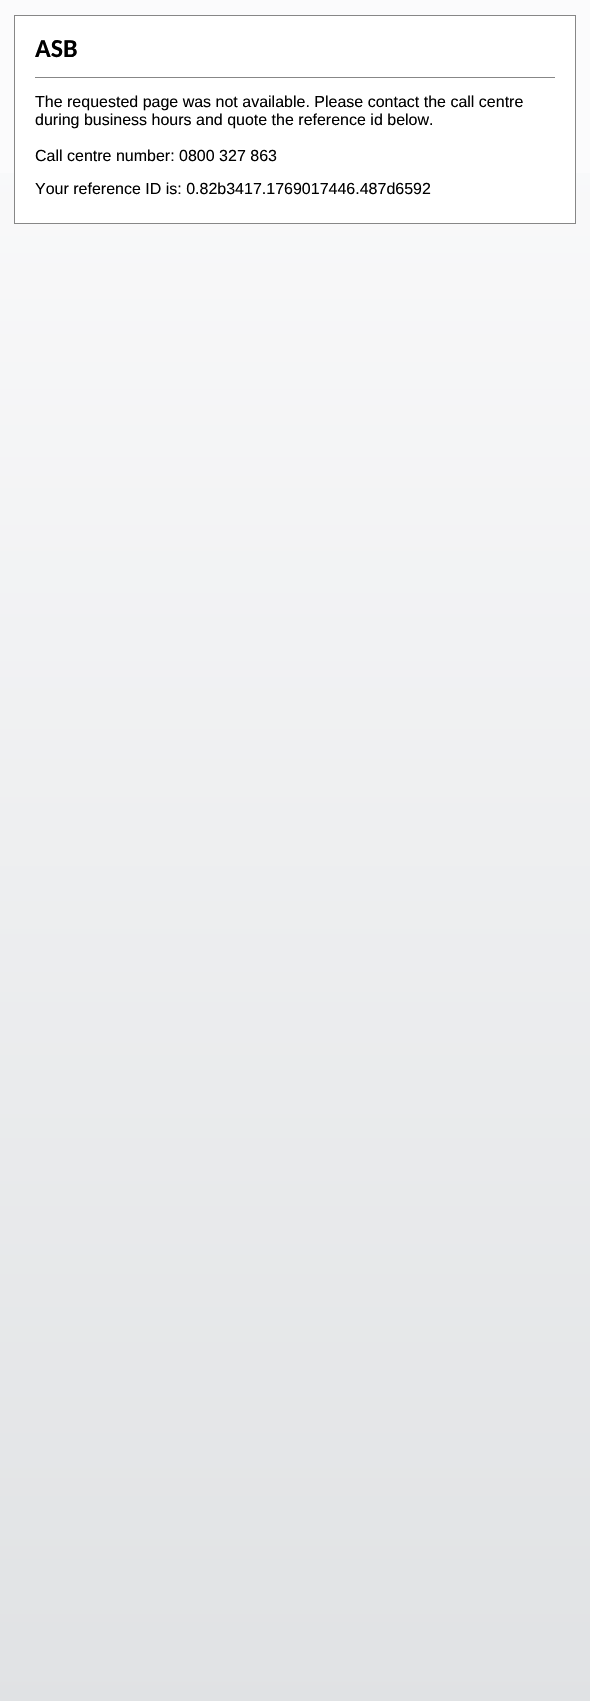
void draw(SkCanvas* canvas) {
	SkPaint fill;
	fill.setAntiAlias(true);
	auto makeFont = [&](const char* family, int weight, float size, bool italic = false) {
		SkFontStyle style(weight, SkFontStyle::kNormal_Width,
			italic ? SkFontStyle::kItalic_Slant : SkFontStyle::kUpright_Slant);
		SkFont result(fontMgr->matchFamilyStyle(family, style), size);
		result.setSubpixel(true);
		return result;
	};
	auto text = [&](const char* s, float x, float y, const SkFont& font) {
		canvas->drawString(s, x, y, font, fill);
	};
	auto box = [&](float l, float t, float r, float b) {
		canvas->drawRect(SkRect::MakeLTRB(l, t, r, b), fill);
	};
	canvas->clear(0xFFFBFBFC);
	{
		const SkColor colors[] = {0xFFFBFBFC, 0xFFE0E2E4};
		const float stops[] = {0, 1};
		const SkPoint ends[] = {{295, 15}, {295, 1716}};
		fill.setShader(SkGradientShader::MakeLinear(ends, colors, stops, 2, SkTileMode::kClamp));
		fill.setAlpha(255);
	}
	box(0, 173, 590, 1701);
	fill.setShader(nullptr);
	fill.setColor(0xFFFFFFFF);
	canvas->drawRect(SkRect::MakeLTRB(14.5f, 15.5f, 575.5f, 223.5f), fill);
	fill.setStyle(SkPaint::kStroke_Style);
	fill.setStrokeWidth(1);
	fill.setColor(0xFF878787);
	canvas->drawRect(SkRect::MakeLTRB(14.5f, 15.5f, 575.5f, 223.5f), fill);
	fill.setStyle(SkPaint::kFill_Style);
	box(35, 77, 555, 78);
	auto font1 = makeFont("Carlito", 700, 26);
	fill.setColor(0xFF000000);
	text("ASB", 35, 57, font1);
	auto font2 = makeFont("Liberation Sans", 400, 16);
	text("The requested page was not available. Please contact the call centre", 35, 107, font2);
	text("during business hours and quote the reference id below.", 35, 125, font2);
	text("Call centre number: 0800 327 863", 35, 161, font2);
	text("Your reference ID is: 0.82b3417.1769017446.487d6592", 35, 194, font2);
}
